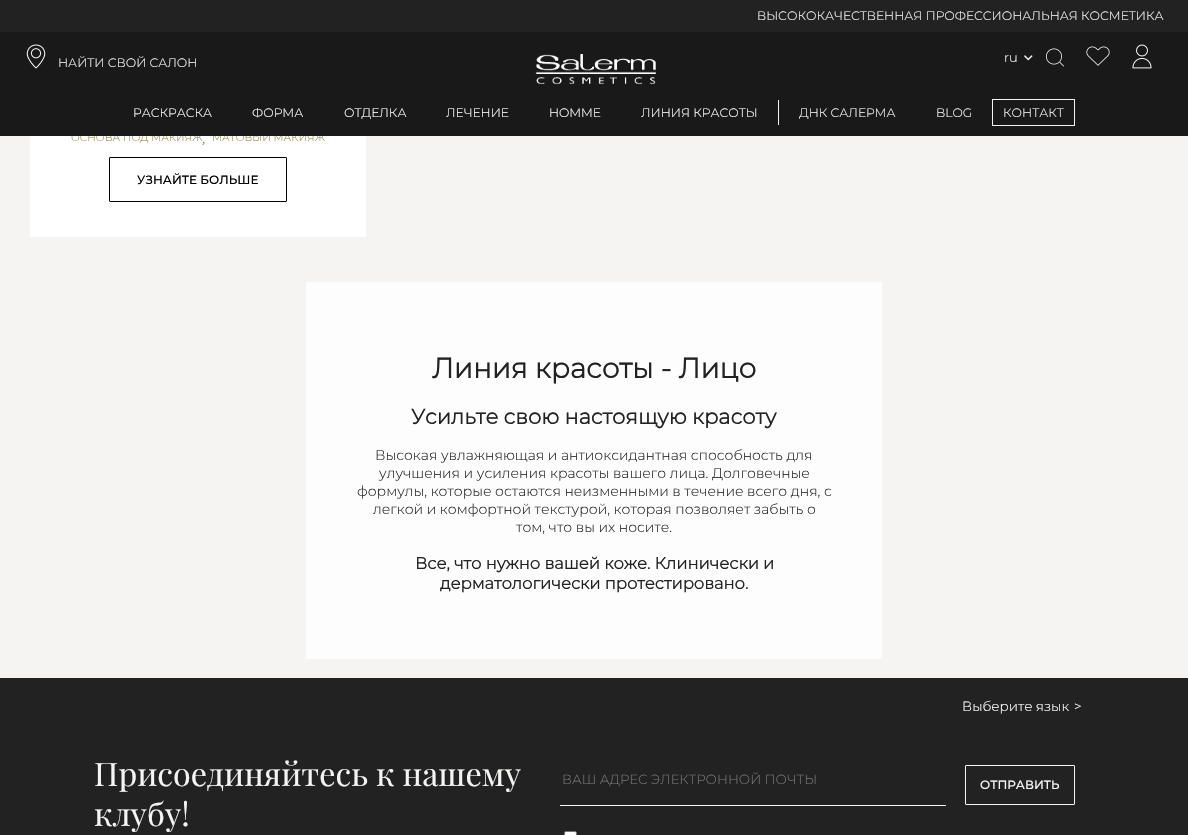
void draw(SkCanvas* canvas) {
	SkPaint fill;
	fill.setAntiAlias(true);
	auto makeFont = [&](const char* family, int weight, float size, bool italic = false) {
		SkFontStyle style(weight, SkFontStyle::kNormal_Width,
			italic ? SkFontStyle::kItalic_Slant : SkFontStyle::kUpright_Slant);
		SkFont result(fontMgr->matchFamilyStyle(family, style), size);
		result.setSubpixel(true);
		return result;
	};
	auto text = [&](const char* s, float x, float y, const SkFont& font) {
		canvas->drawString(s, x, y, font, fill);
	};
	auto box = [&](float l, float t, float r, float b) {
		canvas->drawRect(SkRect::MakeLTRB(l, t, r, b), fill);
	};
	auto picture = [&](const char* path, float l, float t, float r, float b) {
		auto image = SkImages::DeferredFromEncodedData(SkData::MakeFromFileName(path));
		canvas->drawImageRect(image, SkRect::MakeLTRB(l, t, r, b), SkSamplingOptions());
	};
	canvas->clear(0xFFF6F4F2);
	fill.setColor(0xFF222222);
	box(0, 0, 1188, 32);
	fill.setColor(0xFFFFFFFF);
	box(30, 136, 366, 237);
	fill.setStyle(SkPaint::kStroke_Style);
	fill.setStrokeWidth(1);
	fill.setColor(0xFF000000);
	canvas->drawRoundRect(SkRect::MakeLTRB(109.5f, 157.5f, 286.5f, 201.5f), 0.5f, 0.5f, fill);
	fill.setStyle(SkPaint::kFill_Style);
	fill.setColor(0xFFFEFDFD);
	box(306, 282, 882, 659);
	fill.setColor(0xFF222222);
	box(0, 678, 1188, 835);
	fill.setColor(0xFFF6F4F2);
	box(560, 805, 946, 806);
	fill.setColor(0xFFFFFFFF);
	canvas->drawRoundRect(SkRect::MakeLTRB(564.5f, 831.5f, 576.5f, 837.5f), 1.5f, 1.5f, fill);
	fill.setStyle(SkPaint::kStroke_Style);
	fill.setColor(0xFF767676);
	canvas->drawRoundRect(SkRect::MakeLTRB(564.5f, 831.5f, 576.5f, 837.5f), 1.5f, 1.5f, fill);
	fill.setColor(0xFFF6F4F2);
	canvas->drawRoundRect(SkRect::MakeLTRB(965.5f, 765.5f, 1074.5f, 804.5f), 0.5f, 0.5f, fill);
	auto font1 = makeFont("Montserrat", 300, 12.3f);
	fill.setStyle(SkPaint::kFill_Style);
	text("ВЫСОКОКАЧЕСТВЕННАЯ ПРОФЕССИОНАЛЬНАЯ КОСМЕТИКА", 757, 20, font1);
	auto font2 = makeFont("Montserrat", 300, 10.4f);
	fill.setColor(0xFF9A8654);
	text("ОСНОВА ПОД МАКИЯЖ", 71, 141, font2);
	auto font3 = makeFont("Liberation Serif", 400, 13);
	text(",", 202, 143, font3);
	text("МАТОВЫЙ МАКИЯЖ", 212, 141, font2);
	fill.setColor(0xFF1A1919);
	box(0, 32, 1188, 136);
	picture("image2.png", 1024, 55, 1033, 61);
	auto font4 = makeFont("Montserrat", 300, 13);
	fill.setColor(0xFFF6F4F2);
	text("ru", 1004, 62, font4);
	fill.setStyle(SkPaint::kStroke_Style);
	canvas->drawRect(SkRect::MakeLTRB(992.5f, 99.5f, 1074.5f, 125.5f), fill);
	fill.setStyle(SkPaint::kFill_Style);
	text("КОНТАКТ", 1003, 117, font1);
	text("BLOG", 936, 117, font1);
	text("ДНК САЛЕРМА", 799, 117, font1);
	fill.setColor(0xFFFFFFFF);
	text("ЛИНИЯ КРАСОТЫ", 641, 117, font1);
	fill.setColor(0xFFF6F4F2);
	box(778, 100, 779, 125);
	fill.setColor(0xFFFFFFFF);
	text("HOMME", 549, 117, font1);
	text("ЛЕЧЕНИЕ", 446, 117, font1);
	text("ОТДЕЛКА", 344, 117, font1);
	text("ФОРМА", 252, 117, font1);
	text("РАСКРАСКА", 133, 117, font1);
	picture("image5.png", 1132, 44, 1152, 69);
	picture("image4.png", 1086, 46, 1110, 66);
	picture("image3.png", 1046, 48, 1064, 67);
	picture("image1.png", 535, 54, 656, 84);
	fill.setColor(0xFFF6F4F2);
	text("НАЙТИ СВОЙ САЛОН", 58, 67, font1);
	picture("image0.png", 26, 44, 46, 69);
	auto font5 = makeFont("Montserrat", 500, 12);
	fill.setColor(0xFF000000);
	text("УЗНАЙТЕ БОЛЬШЕ", 137, 184, font5);
	auto font6 = makeFont("Montserrat", 700, 28);
	fill.setColor(0xFF222222);
	text("Линия красоты - Лицо", 432, 378, font6);
	auto font7 = makeFont("Montserrat", 700, 21);
	text("Усильте свою настоящую красоту", 411, 424, font7);
	auto font8 = makeFont("Montserrat", 300, 14);
	text("Высокая увлажняющая и антиоксидантная способность для", 375, 460, font8);
	text("улучшения и усиления красоты вашего лица. Долговечные", 379, 478, font8);
	text("формулы, которые остаются неизменными в течение всего дня, с", 357, 496, font8);
	text("легкой и комфортной текстурой, которая позволяет забыть о", 373, 514, font8);
	text("том, что вы их носите.", 516, 532, font8);
	auto font9 = makeFont("Montserrat", 700, 16.4f);
	text("Все, что нужно вашей коже. Клинически и", 415, 569, font9);
	text("дерматологически протестировано.", 440, 589, font9);
	auto font10 = makeFont("Montserrat", 300, 13.5f);
	fill.setColor(0xFFFFFFFF);
	text("Выберите язык", 962, 711, font10);
	text(">", 1074, 711, font10);
	auto font11 = makeFont("Playfair Display", 400, 40);
	fill.setColor(0xFFF6F4F2);
	text("Присоединяйтесь к нашему", 94, 786, font11);
	text("клубу!", 94, 826, font11);
	auto font12 = makeFont("Montserrat", 300, 13.3f);
	fill.setColor(0xFF757575);
	text("ВАШ АДРЕС ЭЛЕКТРОННОЙ ПОЧТЫ", 562, 784, font12);
	fill.setColor(0xFFF6F4F2);
	text("ОТПРАВИТЬ", 980, 789, font5);
}
